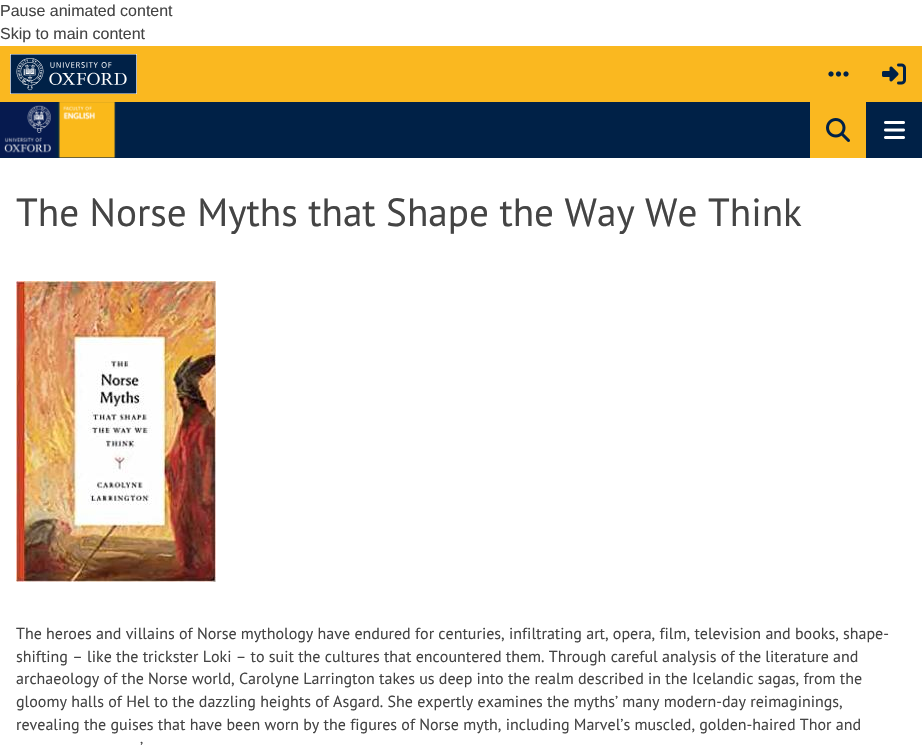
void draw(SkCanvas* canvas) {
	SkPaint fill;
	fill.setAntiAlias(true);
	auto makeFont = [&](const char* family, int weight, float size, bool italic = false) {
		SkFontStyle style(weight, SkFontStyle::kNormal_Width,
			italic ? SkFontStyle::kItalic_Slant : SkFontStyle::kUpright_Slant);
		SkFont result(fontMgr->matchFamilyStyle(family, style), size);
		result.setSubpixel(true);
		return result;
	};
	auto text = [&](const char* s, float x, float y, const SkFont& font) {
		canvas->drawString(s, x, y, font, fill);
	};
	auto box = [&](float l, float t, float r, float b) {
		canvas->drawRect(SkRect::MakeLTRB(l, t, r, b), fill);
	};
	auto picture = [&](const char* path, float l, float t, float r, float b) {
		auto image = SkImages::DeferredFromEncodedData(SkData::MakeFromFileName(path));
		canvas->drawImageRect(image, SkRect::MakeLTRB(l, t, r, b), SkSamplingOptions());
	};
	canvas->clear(0xFFFFFFFF);
	fill.setColor(0xFFFAB820);
	box(0, 46, 922, 102);
	picture("image0.png", 10, 54, 137, 94);
	picture("image1.png", 828, 71, 849, 77);
	picture("image2.png", 882, 63, 906, 85);
	fill.setColor(0xFF002147);
	box(0, 102, 922, 158);
	picture("image3.png", 0, 102, 116, 158);
	fill.setColor(0xFFFAB820);
	box(810, 102, 866, 158);
	picture("image4.png", 826, 118, 850, 142);
	picture("image5.png", 884, 121, 905, 139);
	picture("image6.png", 16, 281, 216, 582);
	auto font1 = makeFont("Liberation Sans", 400, 16);
	fill.setColor(0xFF444444);
	text("Pause animated content", 0, 16, font1);
	text("Skip to main content", 0, 39, font1);
	auto font2 = makeFont("PT Sans", 400, 39.2f);
	text("The Norse Myths that Shape the Way We Think", 16, 226, font2);
	auto font3 = makeFont("PT Sans", 400, 16);
	text("The heroes and villains of Norse mythology have endured for centuries, infiltrating art, opera, film, television and books, shape-", 16, 639, font3);
	text("shifting – like the trickster Loki – to suit the cultures that encountered them. Through careful analysis of the literature and", 16, 662, font3);
	text("archaeology of the Norse world, Carolyne Larrington takes us deep into the realm described in the Icelandic sagas, from the", 16, 684, font3);
	text("gloomy halls of Hel to the dazzling heights of Asgard. She expertly examines the myths’ many modern-day reimaginings,", 16, 707, font3);
	text("revealing the guises that have been worn by the figures of Norse myth, including Marvel’s muscled, golden-haired Thor and", 16, 730, font3);
	text("’", 140, 753, font3);
}
